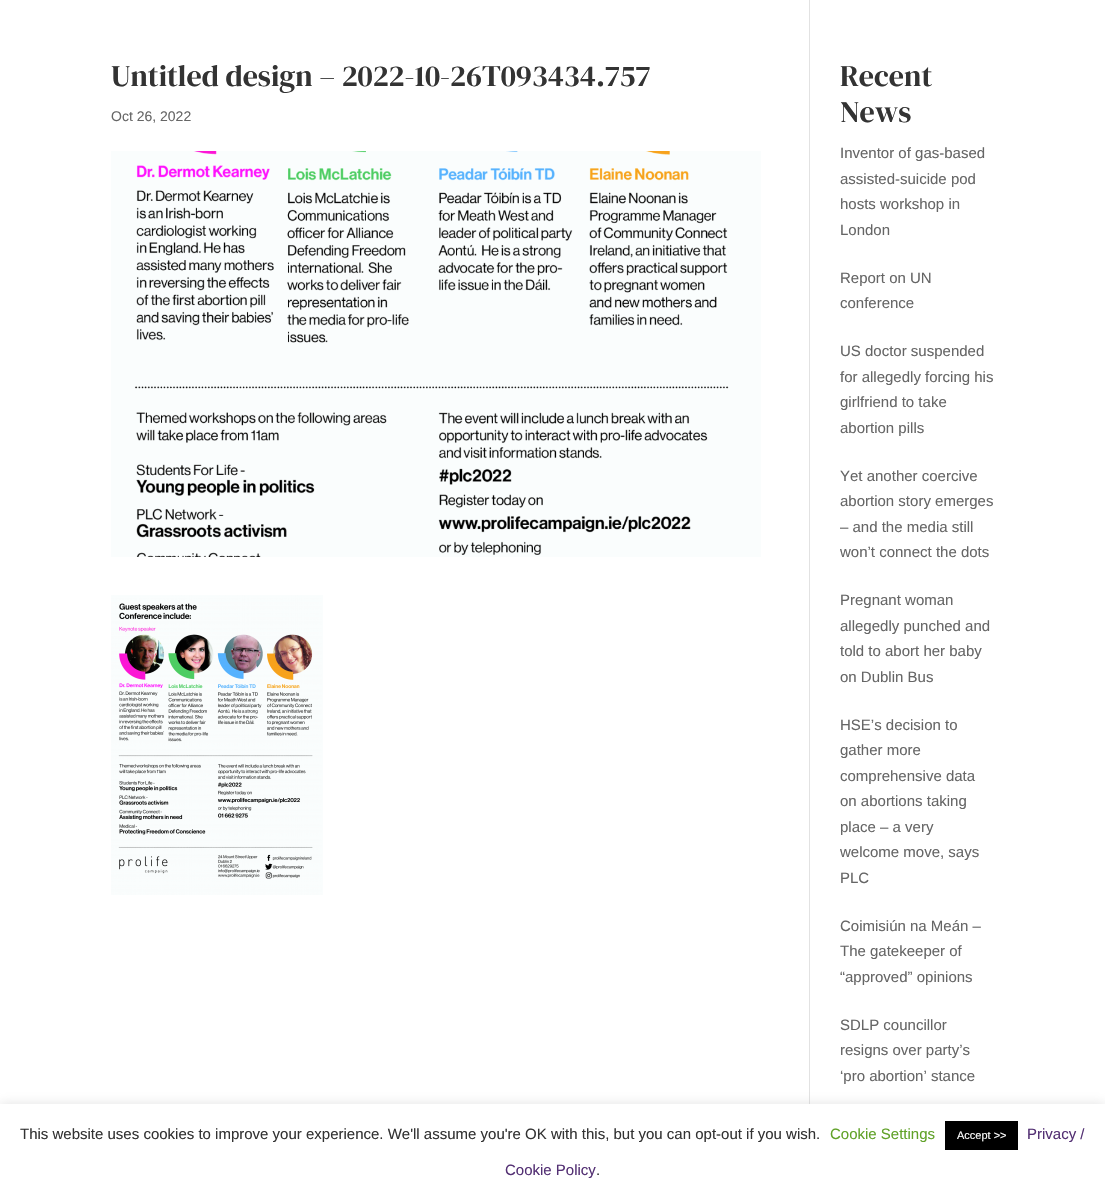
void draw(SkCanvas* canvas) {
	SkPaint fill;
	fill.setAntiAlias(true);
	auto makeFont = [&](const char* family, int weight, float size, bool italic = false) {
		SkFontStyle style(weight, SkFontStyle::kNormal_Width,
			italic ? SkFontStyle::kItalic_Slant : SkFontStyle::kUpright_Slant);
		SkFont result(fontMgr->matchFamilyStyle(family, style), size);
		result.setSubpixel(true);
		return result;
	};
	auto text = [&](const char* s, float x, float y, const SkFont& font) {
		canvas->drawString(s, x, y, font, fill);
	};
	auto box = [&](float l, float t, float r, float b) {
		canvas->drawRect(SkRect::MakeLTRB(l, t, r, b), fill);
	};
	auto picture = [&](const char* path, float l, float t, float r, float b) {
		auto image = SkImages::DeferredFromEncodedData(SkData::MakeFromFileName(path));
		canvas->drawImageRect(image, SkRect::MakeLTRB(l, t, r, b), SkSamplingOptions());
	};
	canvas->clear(0xFFFFFFFF);
	fill.setColor(0xFFE2E2E2);
	box(809, 0, 810, 1104);
	picture("image0.png", 111, 151, 761, 557);
	picture("image1.png", 111, 595, 323, 895);
	fill.setColor(0x4DACABAB);
	fill.setMaskFilter(SkMaskFilter::MakeBlur(kNormal_SkBlurStyle, 5));
	canvas->drawRect(SkRect::MakeLTRB(0, 1103, 1105, 1193), fill);
	fill.setMaskFilter(nullptr);
	fill.setColor(0xFFFFFFFF);
	box(0, 1104, 1105, 1194);
	fill.setColor(0xFF000000);
	box(945, 1121, 1018, 1150);
	auto font1 = makeFont("DM Serif Display", 400, 30);
	fill.setColor(0xFF333333);
	text("Untitled design – 2022-10-26T093434.757", 111, 86, font1);
	auto font2 = makeFont("Liberation Sans", 400, 14);
	fill.setColor(0xFF666666);
	text("Oct 26, 2022", 111, 121, font2);
	fill.setColor(0xFF333333);
	text("Recent", 840, 86, font1);
	text("News", 840, 122, font1);
	auto font3 = makeFont("Liberation Sans", 400, 15);
	fill.setColor(0xFF666666);
	text("Inventor of gas-based", 840, 158, font3);
	text("assisted-suicide pod", 840, 184, font3);
	text("hosts workshop in", 840, 209, font3);
	text("London", 840, 235, font3);
	text("Report on UN", 840, 283, font3);
	text("conference", 840, 308, font3);
	text("US doctor suspended", 840, 356, font3);
	text("for allegedly forcing his", 840, 382, font3);
	text("girlfriend to take", 840, 407, font3);
	text("abortion pills", 840, 433, font3);
	text("Yet another coercive", 840, 481, font3);
	text("abortion story emerges", 840, 506, font3);
	text("– and the media still", 840, 532, font3);
	text("won’t connect the dots", 840, 557, font3);
	text("Pregnant woman", 840, 605, font3);
	text("allegedly punched and", 840, 631, font3);
	text("told to abort her baby", 840, 656, font3);
	text("on Dublin Bus", 840, 682, font3);
	text("HSE’s decision to", 840, 730, font3);
	text("gather more", 840, 755, font3);
	text("comprehensive data", 840, 781, font3);
	text("on abortions taking", 840, 806, font3);
	text("place – a very", 840, 832, font3);
	text("welcome move, says", 840, 857, font3);
	text("PLC", 840, 883, font3);
	text("Coimisiún na Meán –", 840, 931, font3);
	text("The gatekeeper of", 840, 956, font3);
	text("“approved” opinions", 840, 982, font3);
	text("SDLP councillor", 840, 1030, font3);
	text("resigns over party’s", 840, 1055, font3);
	text("‘pro abortion’ stance", 840, 1081, font3);
	fill.setColor(0xFF333333);
	text("This website uses cookies to improve your experience. We'll assume you're OK with this, but you can opt-out if you wish.", 20, 1139, font3);
	fill.setColor(0xFF61A229);
	text("Cookie Settings", 830, 1139, font3);
	auto font4 = makeFont("Liberation Sans", 400, 11);
	fill.setColor(0xFFFFFFFF);
	text("Accept >>", 957, 1139, font4);
	fill.setColor(0xFF543174);
	text("Privacy /", 1027, 1139, font3);
	text("Cookie Policy", 505, 1175, font3);
	fill.setColor(0xFF333333);
	text(".", 596, 1175, font3);
}
